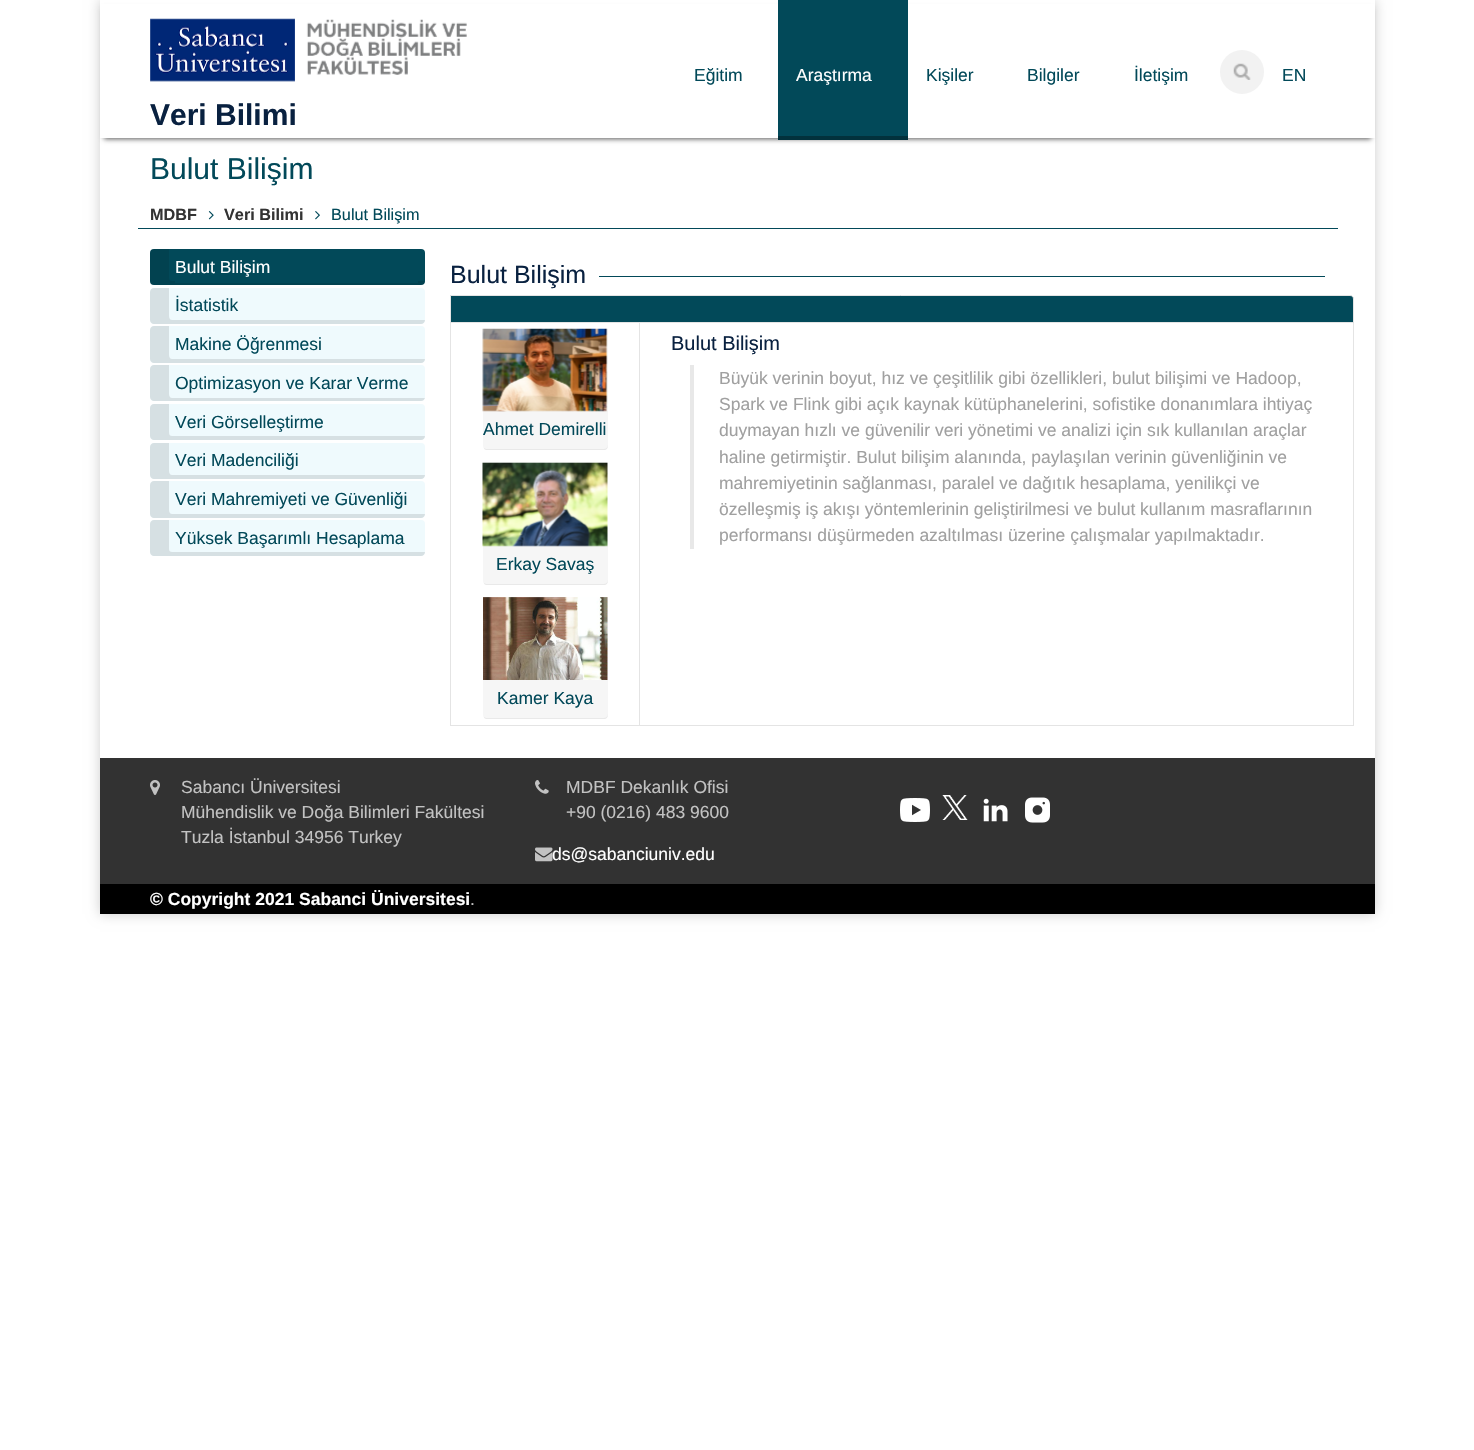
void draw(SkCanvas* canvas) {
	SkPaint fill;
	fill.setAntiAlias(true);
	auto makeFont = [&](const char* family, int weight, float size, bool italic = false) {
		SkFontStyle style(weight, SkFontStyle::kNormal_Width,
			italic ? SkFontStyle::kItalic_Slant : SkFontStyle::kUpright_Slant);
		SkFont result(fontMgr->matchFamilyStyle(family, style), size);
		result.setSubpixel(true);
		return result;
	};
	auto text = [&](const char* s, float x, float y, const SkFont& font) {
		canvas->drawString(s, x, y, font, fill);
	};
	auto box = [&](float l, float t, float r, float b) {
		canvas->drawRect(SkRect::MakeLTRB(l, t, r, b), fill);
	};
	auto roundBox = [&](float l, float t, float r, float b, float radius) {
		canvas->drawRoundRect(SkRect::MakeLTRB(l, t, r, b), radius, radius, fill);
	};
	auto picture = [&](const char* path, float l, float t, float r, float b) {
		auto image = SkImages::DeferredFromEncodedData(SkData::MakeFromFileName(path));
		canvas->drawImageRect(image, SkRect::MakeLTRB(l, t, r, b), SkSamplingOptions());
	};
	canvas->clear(0xFFFFFFFF);
	canvas->save();
	canvas->clipPath(SkPathBuilder(SkPathFillType::kEvenOdd).moveTo(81, 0).lineTo(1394, 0).lineTo(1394, 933).lineTo(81, 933).close().moveTo(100, 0).lineTo(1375, 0).lineTo(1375, 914).lineTo(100, 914).close().detach(), true);
	fill.setColor(0x33000000);
	fill.setMaskFilter(SkMaskFilter::MakeBlur(kNormal_SkBlurStyle, 6));
	canvas->drawRect(SkRect::MakeLTRB(100, 0, 1375, 914), fill);
	fill.setMaskFilter(nullptr);
	canvas->restore();
	fill.setColor(0xFF5A5A5A);
	fill.setMaskFilter(SkMaskFilter::MakeBlur(kNormal_SkBlurStyle, 2.5f));
	canvas->drawRect(SkRect::MakeLTRB(104, 9, 1371, 139), fill);
	fill.setMaskFilter(nullptr);
	fill.setColor(0xFFFFFFFF);
	box(100, 4, 1375, 138);
	fill.setColor(0xFF024959);
	box(778, 0, 908, 136);
	fill.setColor(0xFF02313C);
	box(778, 136, 908, 140);
	fill.setColor(0xFFF2F2F2);
	canvas->drawCircle(1242, 72, 22, fill);
	picture("image0.png", 1233, 63, 1251, 80);
	picture("image1.png", 150, 18, 295, 82);
	picture("image2.png", 306, 19, 467, 75);
	picture("image3.png", 208, 211, 214, 220);
	picture("image4.png", 315, 211, 320, 220);
	fill.setColor(0xFF024959);
	box(138, 228, 1338, 229);
	roundBox(150, 249, 425, 285, 4);
	fill.setColor(0x1A000000);
	canvas->drawPath(SkPathBuilder().moveTo(154, 249).cubicTo(152, 249, 150, 251, 150, 253).lineTo(150, 281).cubicTo(150, 283, 152, 285, 154, 285).lineTo(421, 285).cubicTo(423, 285, 425, 283, 425, 281).lineTo(172, 281).cubicTo(170, 281, 169, 280, 169, 278).lineTo(169, 249).close().detach(), fill);
	fill.setColor(0xFF024959);
	box(175, 281, 418, 283);
	fill.setColor(0xFFEFFAFD);
	roundBox(150, 288, 425, 324, 4);
	fill.setColor(0x1A000000);
	canvas->drawPath(SkPathBuilder().moveTo(154, 288).cubicTo(152, 288, 150, 290, 150, 292).lineTo(150, 320).cubicTo(150, 322, 152, 324, 154, 324).lineTo(421, 324).cubicTo(423, 324, 425, 322, 425, 320).lineTo(172, 320).cubicTo(170, 320, 169, 318, 169, 316).lineTo(169, 288).close().detach(), fill);
	fill.setColor(0xFFEFFAFD);
	roundBox(150, 326, 425, 363, 4);
	fill.setColor(0x1A000000);
	canvas->drawPath(SkPathBuilder().moveTo(154, 326).cubicTo(152, 326, 150, 328, 150, 330).lineTo(150, 359).cubicTo(150, 361, 152, 363, 154, 363).lineTo(421, 363).cubicTo(423, 363, 425, 361, 425, 359).lineTo(172, 359).cubicTo(170, 359, 169, 357, 169, 355).lineTo(169, 326).close().detach(), fill);
	fill.setColor(0xFFEFFAFD);
	roundBox(150, 365, 425, 401, 4);
	fill.setColor(0x1A000000);
	canvas->drawPath(SkPathBuilder().moveTo(154, 365).cubicTo(152, 365, 150, 367, 150, 369).lineTo(150, 397).cubicTo(150, 399, 152, 401, 154, 401).lineTo(421, 401).cubicTo(423, 401, 424, 400, 425, 398).lineTo(172, 398).cubicTo(170, 398, 169, 396, 169, 394).lineTo(169, 365).close().detach(), fill);
	fill.setColor(0xFFEFFAFD);
	roundBox(150, 404, 425, 440, 4);
	fill.setColor(0x1A000000);
	canvas->drawPath(SkPathBuilder().moveTo(154, 404).cubicTo(152, 404, 150, 406, 150, 408).lineTo(150, 436).cubicTo(150, 438, 152, 440, 154, 440).lineTo(421, 440).cubicTo(423, 440, 425, 438, 425, 436).lineTo(172, 436).cubicTo(170, 436, 169, 435, 169, 432).lineTo(169, 404).close().detach(), fill);
	fill.setColor(0xFFEFFAFD);
	roundBox(150, 443, 425, 479, 4);
	fill.setColor(0x1A000000);
	canvas->drawPath(SkPathBuilder().moveTo(154, 443).cubicTo(152, 443, 150, 445, 150, 447).lineTo(150, 475).cubicTo(150, 477, 152, 479, 154, 479).lineTo(421, 479).cubicTo(423, 479, 425, 477, 425, 475).lineTo(172, 475).cubicTo(170, 475, 169, 473, 169, 471).lineTo(169, 443).close().detach(), fill);
	fill.setColor(0xFFEFFAFD);
	roundBox(150, 481, 425, 518, 4);
	fill.setColor(0x1A000000);
	canvas->drawPath(SkPathBuilder().moveTo(154, 481).cubicTo(152, 481, 150, 483, 150, 485).lineTo(150, 514).cubicTo(150, 516, 152, 518, 154, 518).lineTo(421, 518).cubicTo(423, 518, 425, 516, 425, 514).lineTo(172, 514).cubicTo(170, 514, 169, 512, 169, 510).lineTo(169, 481).close().detach(), fill);
	fill.setColor(0xFFEFFAFD);
	roundBox(150, 520, 425, 556, 4);
	fill.setColor(0x1A000000);
	canvas->drawPath(SkPathBuilder().moveTo(154, 520).cubicTo(152, 520, 150, 522, 150, 524).lineTo(150, 552).cubicTo(150, 554, 152, 556, 154, 556).lineTo(421, 556).cubicTo(423, 556, 425, 554, 425, 552).lineTo(172, 552).cubicTo(170, 552, 169, 551, 169, 549).lineTo(169, 520).close().detach(), fill);
	fill.setColor(0xFF024959);
	box(599, 276, 1325, 277);
	canvas->drawPath(SkPathBuilder().moveTo(450.5f, 295.5f).lineTo(1350, 295.5f).cubicTo(1352, 295.5f, 1353.5f, 297, 1353.5f, 299).lineTo(1353.5f, 322.5f).lineTo(450.5f, 322.5f).close().detach(), fill);
	fill.setStyle(SkPaint::kStroke_Style);
	fill.setStrokeWidth(1);
	fill.setColor(0xFFE4E4E4);
	canvas->drawPath(SkPathBuilder().moveTo(450.5f, 295.5f).lineTo(1350, 295.5f).cubicTo(1352, 295.5f, 1353.5f, 297, 1353.5f, 299).lineTo(1353.5f, 322.5f).lineTo(450.5f, 322.5f).close().detach(), fill);
	fill.setStyle(SkPaint::kFill_Style);
	box(450, 725, 639, 726);
	box(450, 323, 451, 726);
	fill.setColor(0xFFF6F6F6);
	canvas->drawPath(SkPathBuilder().moveTo(483, 411).lineTo(608, 411).lineTo(608, 446).cubicTo(608, 448, 606, 450, 604, 450).lineTo(487, 450).cubicTo(485, 450, 483, 448, 483, 446).close().detach(), fill);
	picture("image5.png", 482, 328, 608, 412);
	fill.setColor(0x0D000000);
	canvas->drawPath(SkPathBuilder().moveTo(484, 448).cubicTo(484, 449, 485, 450, 486, 450).lineTo(604, 450).cubicTo(607, 450, 608, 448, 608, 445).cubicTo(608, 447, 606, 449, 604, 449).lineTo(486, 449).close().detach(), fill);
	fill.setColor(0xFFF6F6F6);
	canvas->drawPath(SkPathBuilder().moveTo(483, 546).lineTo(608, 546).lineTo(608, 581).cubicTo(608, 583, 606, 585, 604, 585).lineTo(487, 585).cubicTo(485, 585, 483, 583, 483, 581).close().detach(), fill);
	picture("image6.png", 482, 462, 608, 547);
	fill.setColor(0x0D000000);
	canvas->drawPath(SkPathBuilder().moveTo(484, 583).cubicTo(484, 584, 485, 585, 486, 585).lineTo(604, 585).cubicTo(607, 585, 608, 583, 608, 580).cubicTo(608, 582, 606, 584, 604, 584).lineTo(486, 584).close().detach(), fill);
	picture("image7.png", 483, 597, 608, 680);
	fill.setColor(0xFFF6F6F6);
	canvas->drawPath(SkPathBuilder().moveTo(483, 680).lineTo(608, 680).lineTo(608, 715).cubicTo(608, 717, 606, 719, 604, 719).lineTo(487, 719).cubicTo(485, 719, 483, 717, 483, 715).close().detach(), fill);
	fill.setColor(0x0D000000);
	canvas->drawPath(SkPathBuilder().moveTo(484, 717).cubicTo(484, 718, 485, 719, 486, 719).lineTo(604, 719).cubicTo(607, 719, 608, 717, 608, 714).cubicTo(608, 716, 606, 718, 604, 718).lineTo(486, 718).close().detach(), fill);
	fill.setColor(0xFFE4E4E4);
	box(1353, 323, 1354, 726);
	box(639, 725, 1354, 726);
	box(639, 323, 640, 726);
	fill.setColor(0xFFE8E8E8);
	box(690, 365, 694, 549);
	fill.setColor(0xFF323232);
	box(100, 758, 1375, 884);
	picture("image8.png", 150, 780, 160, 795);
	picture("image9.png", 535, 780, 549, 794);
	picture("image10.png", 535, 847, 553, 862);
	picture("image11.png", 900, 798, 930, 822);
	picture("image12.png", 942, 795, 968, 820);
	picture("image13.png", 983, 798, 1008, 822);
	picture("image14.png", 1025, 797, 1050, 823);
	fill.setColor(0xFF000000);
	box(100, 884, 1375, 914);
	auto font1 = makeFont("Liberation Sans", 400, 17.5f);
	fill.setColor(0xFF024959);
	text("Eğitim", 694, 81, font1);
	fill.setColor(0xFFFFFFFF);
	text("Araştırma", 796, 81, font1);
	fill.setColor(0xFF024959);
	text("Kişiler", 926, 81, font1);
	text("Bilgiler", 1027, 81, font1);
	text("İletişim", 1134, 81, font1);
	text("EN", 1282, 81, font1);
	auto font2 = makeFont("Liberation Sans", 700, 30);
	fill.setColor(0xFF092140);
	text("Veri Bilimi", 150, 125, font2);
	auto font3 = makeFont("Liberation Sans", 400, 30);
	fill.setColor(0xFF024959);
	text("Bulut Bilişim", 150, 179, font3);
	auto font4 = makeFont("Liberation Sans", 700, 16.25f);
	fill.setColor(0xFF333333);
	text("MDBF", 150, 220, font4);
	text("Veri Bilimi", 224, 220, font4);
	auto font5 = makeFont("Liberation Sans", 400, 16.25f);
	fill.setColor(0xFF024959);
	text("Bulut Bilişim", 331, 220, font5);
	fill.setColor(0xFFFFFFFF);
	text("Bulut Bilişim", 175, 273, font1);
	fill.setColor(0xFF024959);
	text("İstatistik", 175, 311, font1);
	text("Makine Öğrenmesi", 175, 350, font1);
	text("Optimizasyon ve Karar Verme", 175, 389, font1);
	text("Veri Görselleştirme", 175, 428, font1);
	text("Veri Madenciliği", 175, 466, font1);
	text("Veri Mahremiyeti ve Güvenliği", 175, 505, font1);
	text("Yüksek Başarımlı Hesaplama", 175, 544, font1);
	auto font6 = makeFont("Liberation Sans", 400, 25);
	fill.setColor(0xFF092140);
	text("Bulut Bilişim", 450, 283, font6);
	fill.setColor(0xFF024959);
	text("Ahmet Demirelli", 483, 435, font1);
	text("Erkay Savaş", 496, 570, font1);
	text("Kamer Kaya", 497, 704, font1);
	auto font7 = makeFont("Liberation Sans", 400, 20);
	fill.setColor(0xFF092140);
	text("Bulut Bilişim", 671, 350, font7);
	fill.setColor(0xFFA0A0A0);
	text("Büyük verinin boyut, hız ve çeşitlilik gibi özellikleri, bulut bilişimi ve Hadoop,", 719, 384, font1);
	text("Spark ve Flink gibi açık kaynak kütüphanelerini, sofistike donanımlara ihtiyaç", 719, 410, font1);
	text("duymayan hızlı ve güvenilir veri yönetimi ve analizi için sık kullanılan araçlar", 719, 436, font1);
	text("haline getirmiştir. Bulut bilişim alanında, paylaşılan verinin güvenliğinin ve", 719, 463, font1);
	text("mahremiyetinin sağlanması, paralel ve dağıtık hesaplama, yenilikçi ve", 719, 489, font1);
	text("özelleşmiş iş akışı yöntemlerinin geliştirilmesi ve bulut kullanım masraflarının", 719, 515, font1);
	text("performansı düşürmeden azaltılması üzerine çalışmalar yapılmaktadır.", 719, 541, font1);
	fill.setColor(0xFFC2C2C2);
	text("Sabancı Üniversitesi", 181, 793, font1);
	text("Mühendislik ve Doğa Bilimleri Fakültesi", 181, 818, font1);
	text("Tuzla İstanbul 34956 Turkey", 181, 843, font1);
	text("MDBF Dekanlık Ofisi", 566, 793, font1);
	text("+90 (0216) 483 9600", 566, 818, font1);
	fill.setColor(0xFFFFFFFF);
	text("ds@sabanciuniv.edu", 552, 860, font1);
	auto font8 = makeFont("Liberation Sans", 700, 17.5f);
	text("© Copyright 2021 Sabanci Üniversitesi", 150, 905, font8);
	fill.setColor(0xFFC2C2C2);
	text(".", 470, 905, font1);
}
